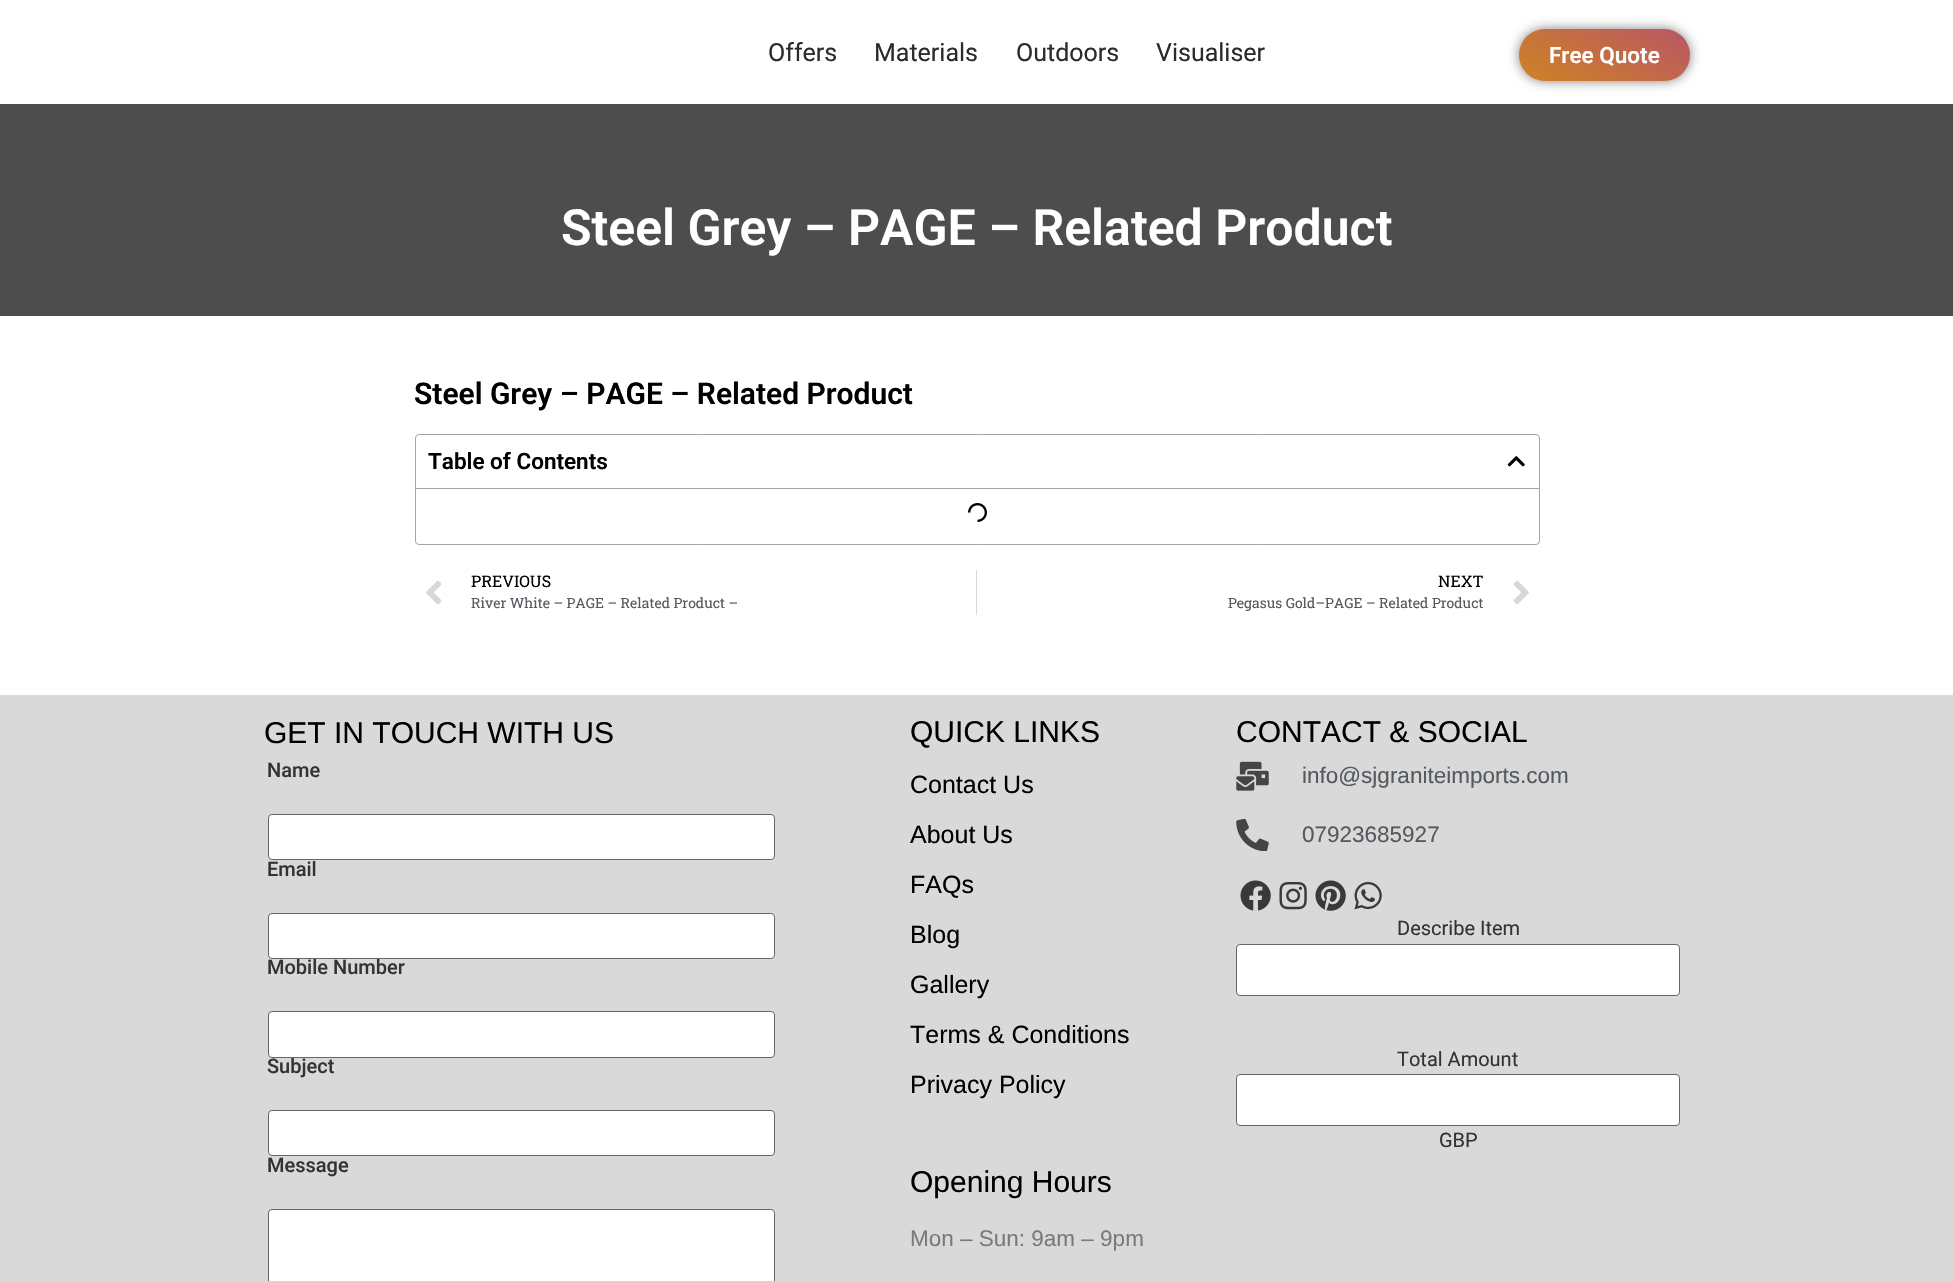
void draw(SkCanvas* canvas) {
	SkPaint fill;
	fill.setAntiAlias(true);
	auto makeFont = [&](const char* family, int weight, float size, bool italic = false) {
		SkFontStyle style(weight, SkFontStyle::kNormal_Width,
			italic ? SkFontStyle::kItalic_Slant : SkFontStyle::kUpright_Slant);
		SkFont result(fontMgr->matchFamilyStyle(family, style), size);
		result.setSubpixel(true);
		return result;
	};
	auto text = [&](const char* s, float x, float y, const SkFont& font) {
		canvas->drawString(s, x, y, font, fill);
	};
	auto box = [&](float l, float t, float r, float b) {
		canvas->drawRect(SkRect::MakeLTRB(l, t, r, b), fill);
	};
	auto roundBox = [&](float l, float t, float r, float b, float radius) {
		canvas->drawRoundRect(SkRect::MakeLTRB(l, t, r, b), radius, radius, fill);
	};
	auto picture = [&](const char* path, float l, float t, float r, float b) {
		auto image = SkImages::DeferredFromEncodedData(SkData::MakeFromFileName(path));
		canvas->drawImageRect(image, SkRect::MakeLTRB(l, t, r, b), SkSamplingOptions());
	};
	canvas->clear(0xFFFFFFFF);
	fill.setColor(0x80000000);
	fill.setMaskFilter(SkMaskFilter::MakeBlur(kNormal_SkBlurStyle, 6));
	canvas->drawRoundRect(SkRect::MakeLTRB(1519, 29, 1690, 81), 26, 26, fill);
	fill.setMaskFilter(nullptr);
	{
		const SkColor colors[] = {0xFFBA5862, 0xFFCF8323};
		const float stops[] = {0.04f, 1};
		const SkPoint ends[] = {{1637, -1.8f}, {1572, 112}};
		fill.setShader(SkGradientShader::MakeLinear(ends, colors, stops, 2, SkTileMode::kClamp));
		fill.setAlpha(255);
	}
	roundBox(1519, 29, 1690, 81, 26);
	fill.setShader(nullptr);
	fill.setColor(0xFF4D4D4D);
	box(0, 104, 1953, 316);
	fill.setStyle(SkPaint::kStroke_Style);
	fill.setStrokeWidth(1);
	fill.setColor(0xFF9DA5AE);
	canvas->drawRoundRect(SkRect::MakeLTRB(415.5f, 434.5f, 1539.5f, 544.5f), 3.5f, 3.5f, fill);
	fill.setStyle(SkPaint::kFill_Style);
	box(416, 488, 1539, 489);
	picture("image0.png", 1507, 456, 1525, 467);
	picture("image1.png", 968, 503, 987, 522);
	picture("image2.png", 426, 580, 442, 605);
	fill.setColor(0xFFD5D8DC);
	box(976, 570, 977, 615);
	picture("image3.png", 1513, 580, 1529, 605);
	fill.setColor(0xFFD9D9D9);
	box(0, 695, 1953, 1281);
	fill.setColor(0xFFFFFFFF);
	canvas->drawRoundRect(SkRect::MakeLTRB(268.5f, 814.5f, 774.5f, 859.5f), 3.5f, 3.5f, fill);
	fill.setStyle(SkPaint::kStroke_Style);
	fill.setColor(0xFF666666);
	canvas->drawRoundRect(SkRect::MakeLTRB(268.5f, 814.5f, 774.5f, 859.5f), 3.5f, 3.5f, fill);
	fill.setStyle(SkPaint::kFill_Style);
	fill.setColor(0xFFFFFFFF);
	canvas->drawRoundRect(SkRect::MakeLTRB(268.5f, 913.5f, 774.5f, 958.5f), 3.5f, 3.5f, fill);
	fill.setStyle(SkPaint::kStroke_Style);
	fill.setColor(0xFF666666);
	canvas->drawRoundRect(SkRect::MakeLTRB(268.5f, 913.5f, 774.5f, 958.5f), 3.5f, 3.5f, fill);
	fill.setStyle(SkPaint::kFill_Style);
	fill.setColor(0xFFFFFFFF);
	canvas->drawRoundRect(SkRect::MakeLTRB(268.5f, 1011.5f, 774.5f, 1057.5f), 3.5f, 3.5f, fill);
	fill.setStyle(SkPaint::kStroke_Style);
	fill.setColor(0xFF666666);
	canvas->drawRoundRect(SkRect::MakeLTRB(268.5f, 1011.5f, 774.5f, 1057.5f), 3.5f, 3.5f, fill);
	fill.setStyle(SkPaint::kFill_Style);
	fill.setColor(0xFFFFFFFF);
	canvas->drawRoundRect(SkRect::MakeLTRB(268.5f, 1110.5f, 774.5f, 1155.5f), 3.5f, 3.5f, fill);
	fill.setStyle(SkPaint::kStroke_Style);
	fill.setColor(0xFF666666);
	canvas->drawRoundRect(SkRect::MakeLTRB(268.5f, 1110.5f, 774.5f, 1155.5f), 3.5f, 3.5f, fill);
	fill.setStyle(SkPaint::kFill_Style);
	fill.setColor(0xFFFFFFFF);
	canvas->drawRoundRect(SkRect::MakeLTRB(268.5f, 1209.5f, 774.5f, 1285.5f), 3.5f, 3.5f, fill);
	fill.setStyle(SkPaint::kStroke_Style);
	fill.setColor(0xFF666666);
	canvas->drawRoundRect(SkRect::MakeLTRB(268.5f, 1209.5f, 774.5f, 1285.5f), 3.5f, 3.5f, fill);
	picture("image4.png", 1236, 761, 1269, 791);
	picture("image5.png", 1236, 819, 1269, 851);
	picture("image6.png", 1240, 880, 1271, 911);
	picture("image7.png", 1279, 881, 1307, 910);
	picture("image8.png", 1315, 880, 1346, 911);
	picture("image9.png", 1354, 882, 1382, 910);
	fill.setStyle(SkPaint::kFill_Style);
	fill.setColor(0xFFFFFFFF);
	canvas->drawRoundRect(SkRect::MakeLTRB(1236.5f, 944.5f, 1679.5f, 995.5f), 3.5f, 3.5f, fill);
	fill.setStyle(SkPaint::kStroke_Style);
	fill.setColor(0xFF666666);
	canvas->drawRoundRect(SkRect::MakeLTRB(1236.5f, 944.5f, 1679.5f, 995.5f), 3.5f, 3.5f, fill);
	fill.setStyle(SkPaint::kFill_Style);
	fill.setColor(0xFFFFFFFF);
	canvas->drawRoundRect(SkRect::MakeLTRB(1236.5f, 1074.5f, 1679.5f, 1125.5f), 3.5f, 3.5f, fill);
	fill.setStyle(SkPaint::kStroke_Style);
	fill.setColor(0xFF666666);
	canvas->drawRoundRect(SkRect::MakeLTRB(1236.5f, 1074.5f, 1679.5f, 1125.5f), 3.5f, 3.5f, fill);
	auto font1 = makeFont("Roboto", 400, 25);
	fill.setStyle(SkPaint::kFill_Style);
	fill.setColor(0xFF2B2B2B);
	text("Offers", 768, 61, font1);
	text("Materials", 874, 61, font1);
	text("Outdoors", 1016, 61, font1);
	text("Visualiser", 1156, 61, font1);
	auto font2 = makeFont("Roboto", 600, 22.5f);
	fill.setColor(0xFFFFFFFF);
	text("Free Quote", 1549, 63, font2);
	auto font3 = makeFont("Roboto", 600, 50);
	text("Steel Grey – PAGE – Related Product", 561, 245, font3);
	auto font4 = makeFont("Roboto", 600, 30);
	fill.setColor(0xFF000000);
	text("Steel Grey – PAGE – Related Product", 414, 404, font4);
	text("Table of Contents", 428, 469, font2);
	auto font5 = makeFont("Roboto Slab", 400, 16);
	text("PREVIOUS", 471, 587, font5);
	auto font6 = makeFont("Roboto Slab", 400, 14);
	fill.setColor(0xFF54595F);
	text("River White – PAGE – Related Product –", 471, 608, font6);
	fill.setColor(0xFF000000);
	text("NEXT", 1438, 587, font5);
	fill.setColor(0xFF54595F);
	text("Pegasus Gold–PAGE – Related Product", 1228, 608, font6);
	auto font7 = makeFont("Liberation Sans", 400, 30);
	fill.setColor(0xFF000000);
	text("GET IN TOUCH WITH US", 264, 743, font7);
	auto font8 = makeFont("Roboto", 500, 20);
	fill.setColor(0xFF333333);
	text("Name", 267, 777, font8);
	text("Email", 267, 876, font8);
	text("Mobile Number", 267, 974, font8);
	text("Subject", 267, 1073, font8);
	text("Message", 267, 1172, font8);
	fill.setColor(0xFF000000);
	text("QUICK LINKS", 910, 742, font7);
	auto font9 = makeFont("Liberation Sans", 400, 25);
	text("Contact Us", 910, 793, font9);
	text("About Us", 910, 843, font9);
	text("FAQs", 910, 893, font9);
	text("Blog", 910, 943, font9);
	text("Gallery", 910, 993, font9);
	text("Terms & Conditions", 910, 1043, font9);
	text("Privacy Policy", 910, 1093, font9);
	text("Opening Hours", 910, 1192, font7);
	auto font10 = makeFont("Liberation Sans", 400, 22.5f);
	fill.setColor(0xFF7A7A7A);
	text("Mon – Sun: 9am – 9pm", 910, 1246, font10);
	fill.setColor(0xFF000000);
	text("CONTACT & SOCIAL", 1236, 742, font7);
	fill.setColor(0xFF54595F);
	text("info@sjgraniteimports.com", 1302, 783, font10);
	text("07923685927", 1302, 842, font10);
	auto font11 = makeFont("Roboto", 400, 20);
	fill.setColor(0xFF333333);
	text("Describe Item", 1397, 935, font11);
	text("Total Amount", 1397, 1066, font11);
	text("GBP", 1439, 1147, font11);
}
